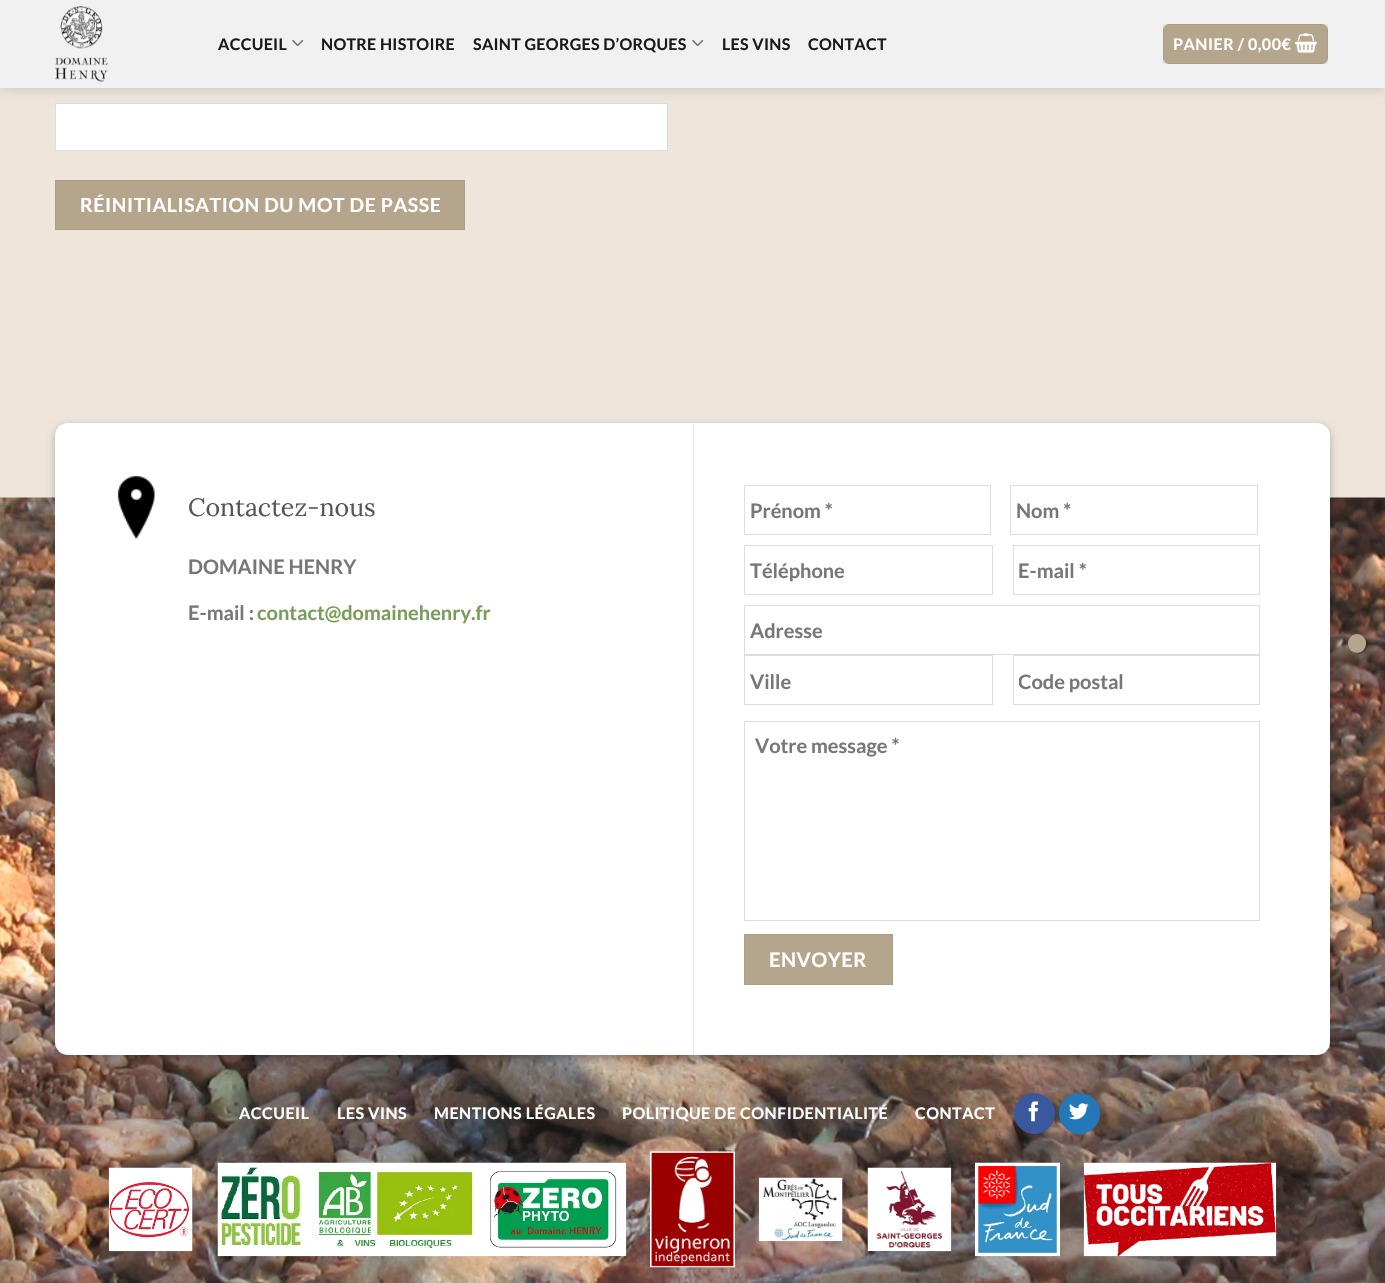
void draw(SkCanvas* canvas) {
	SkPaint fill;
	fill.setAntiAlias(true);
	auto makeFont = [&](const char* family, int weight, float size, bool italic = false) {
		SkFontStyle style(weight, SkFontStyle::kNormal_Width,
			italic ? SkFontStyle::kItalic_Slant : SkFontStyle::kUpright_Slant);
		SkFont result(fontMgr->matchFamilyStyle(family, style), size);
		result.setSubpixel(true);
		return result;
	};
	auto text = [&](const char* s, float x, float y, const SkFont& font) {
		canvas->drawString(s, x, y, font, fill);
	};
	auto spacedText = [&](const char* s, float x, float y, const SkFont& font, const SkPaint& ink, float letter, float word) {
		std::vector<SkGlyphID> glyphs(font.countText(s, strlen(s), SkTextEncoding::kUTF8));
		std::vector<float> xs(glyphs.size());
		font.textToGlyphs(s, strlen(s), SkTextEncoding::kUTF8, glyphs);
		font.getXPos(glyphs, xs, x);
		float extra = 0;
		for (size_t i = 0; i < glyphs.size(); i++) {
			xs[i] += extra;
			extra += letter + word * (glyphs[i] == font.unicharToGlyph(' '));
		}
		canvas->drawTextBlob(SkTextBlob::MakeFromPosHGlyphs(glyphs, xs, y, font), 0, 0, ink);
	};
	auto box = [&](float l, float t, float r, float b) {
		canvas->drawRect(SkRect::MakeLTRB(l, t, r, b), fill);
	};
	auto roundBox = [&](float l, float t, float r, float b, float radius) {
		canvas->drawRoundRect(SkRect::MakeLTRB(l, t, r, b), radius, radius, fill);
	};
	auto picture = [&](const char* path, float l, float t, float r, float b) {
		auto image = SkImages::DeferredFromEncodedData(SkData::MakeFromFileName(path));
		canvas->drawImageRect(image, SkRect::MakeLTRB(l, t, r, b), SkSamplingOptions());
	};
	canvas->clear(0xFFEEE6DB);
	fill.setColor(0xFFFFFFFF);
	canvas->drawRect(SkRect::MakeLTRB(55.5f, 103.5f, 667.5f, 150.5f), fill);
	fill.setStyle(SkPaint::kStroke_Style);
	fill.setStrokeWidth(1);
	fill.setColor(0xFFDDDDDD);
	canvas->drawRect(SkRect::MakeLTRB(55.5f, 103.5f, 667.5f, 150.5f), fill);
	fill.setStyle(SkPaint::kFill_Style);
	fill.setColor(0x26000000);
	fill.setMaskFilter(SkMaskFilter::MakeBlur(kNormal_SkBlurStyle, 6));
	canvas->drawRect(SkRect::MakeLTRB(1, 1, 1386, 89), fill);
	fill.setMaskFilter(nullptr);
	fill.setColor(0xFFF1F1F1);
	box(0, 0, 1385, 88);
	picture("image0.png", 55, 6, 108, 82);
	picture("image1.png", 292, 39, 304, 47);
	picture("image1.png", 692, 39, 704, 47);
	fill.setColor(0xFFB5A58C);
	roundBox(1163, 24, 1328, 64, 6);
	fill.setStyle(SkPaint::kStroke_Style);
	fill.setColor(0x0D000000);
	canvas->drawRect(SkRect::MakeLTRB(1163.5f, 24.5f, 1327.5f, 63.5f), fill);
	picture("image2.png", 1295, 33, 1317, 53);
	fill.setStyle(SkPaint::kFill_Style);
	fill.setColor(0xFFB5A58C);
	canvas->drawRect(SkRect::MakeLTRB(55.5f, 180.5f, 464.5f, 229.5f), fill);
	fill.setStyle(SkPaint::kStroke_Style);
	fill.setColor(0xFFAC9D85);
	canvas->drawRect(SkRect::MakeLTRB(55.5f, 180.5f, 464.5f, 229.5f), fill);
	picture("image3.png", 0, 497, 1385, 1283);
	fill.setStyle(SkPaint::kFill_Style);
	fill.setColor(0x3B000000);
	fill.setMaskFilter(SkMaskFilter::MakeBlur(kNormal_SkBlurStyle, 4));
	canvas->drawRoundRect(SkRect::MakeLTRB(55, 426, 1330, 1059), 13, 13, fill);
	fill.setMaskFilter(nullptr);
	fill.setColor(0x29000000);
	fill.setMaskFilter(SkMaskFilter::MakeBlur(kNormal_SkBlurStyle, 4));
	canvas->drawRoundRect(SkRect::MakeLTRB(60, 431, 1325, 1054), 8, 8, fill);
	fill.setMaskFilter(nullptr);
	fill.setColor(0xFFFFFFFF);
	roundBox(55, 423, 1330, 1055, 13);
	picture("image4.png", 117, 476, 155, 539);
	fill.setColor(0xFFECECEC);
	box(693, 423, 694, 1055);
	fill.setStyle(SkPaint::kStroke_Style);
	fill.setColor(0xFFDDDDDD);
	canvas->drawRect(SkRect::MakeLTRB(744.5f, 485.5f, 990.5f, 534.5f), fill);
	canvas->drawRect(SkRect::MakeLTRB(1010.5f, 485.5f, 1257.5f, 534.5f), fill);
	canvas->drawRect(SkRect::MakeLTRB(744.5f, 545.5f, 992.5f, 594.5f), fill);
	canvas->drawRect(SkRect::MakeLTRB(1013.5f, 545.5f, 1259.5f, 594.5f), fill);
	canvas->drawRect(SkRect::MakeLTRB(744.5f, 605.5f, 1259.5f, 654.5f), fill);
	canvas->drawRect(SkRect::MakeLTRB(744.5f, 655.5f, 992.5f, 704.5f), fill);
	canvas->drawRect(SkRect::MakeLTRB(1013.5f, 655.5f, 1259.5f, 704.5f), fill);
	canvas->drawRect(SkRect::MakeLTRB(744.5f, 721.5f, 1259.5f, 920.5f), fill);
	fill.setStyle(SkPaint::kFill_Style);
	fill.setColor(0xFFB5A58C);
	canvas->drawRect(SkRect::MakeLTRB(744.5f, 934.5f, 892.5f, 984.5f), fill);
	fill.setStyle(SkPaint::kStroke_Style);
	fill.setColor(0xFFAC9D85);
	canvas->drawRect(SkRect::MakeLTRB(744.5f, 934.5f, 892.5f, 984.5f), fill);
	fill.setStyle(SkPaint::kFill_Style);
	fill.setColor(0xFF3A589D);
	canvas->drawCircle(1034.5f, 1113.5f, 20, fill);
	fill.setStyle(SkPaint::kStroke_Style);
	canvas->drawCircle(1034.5f, 1113.5f, 20, fill);
	picture("image5.png", 1028, 1101, 1038, 1122);
	fill.setStyle(SkPaint::kFill_Style);
	fill.setColor(0xFF2478BA);
	canvas->drawCircle(1079.5f, 1113.5f, 20, fill);
	fill.setStyle(SkPaint::kStroke_Style);
	canvas->drawCircle(1079.5f, 1113.5f, 20, fill);
	picture("image6.png", 1069, 1103, 1089, 1120);
	picture("image7.png", 108, 1167, 193, 1252);
	picture("image8.png", 217, 1162, 627, 1257);
	picture("image9.png", 650, 1151, 735, 1268);
	picture("image10.png", 758, 1177, 843, 1242);
	picture("image11.png", 867, 1167, 952, 1252);
	picture("image12.png", 975, 1162, 1060, 1257);
	picture("image13.png", 1083, 1162, 1277, 1257);
	fill.setStyle(SkPaint::kFill_Style);
	fill.setColor(0x4D000000);
	fill.setMaskFilter(SkMaskFilter::MakeBlur(kNormal_SkBlurStyle, 0.5f));
	canvas->drawRoundRect(SkRect::MakeLTRB(1349, 635, 1368, 654), 9.5f, 9.5f, fill);
	fill.setMaskFilter(nullptr);
	fill.setColor(0xFFB5A58C);
	roundBox(1348, 634, 1366, 653, 9);
	auto font1 = makeFont("Lato", 700, 16);
	fill.setColor(0xFF191919);
	spacedText("ACCUEIL", 218, 50, font1, fill, 0.3f, 0);
	spacedText("NOTRE HISTOIRE", 321, 50, font1, fill, 0.3f, 0);
	spacedText("SAINT GEORGES D’ORQUES", 473, 50, font1, fill, 0.3f, 0);
	spacedText("LES VINS", 722, 50, font1, fill, 0.3f, 0);
	spacedText("CONTACT", 808, 50, font1, fill, 0.3f, 0);
	fill.setColor(0xFFFFFFFF);
	spacedText("PANIER / 0,00€", 1173, 50, font1, fill, 0.5f, 0);
	auto font2 = makeFont("Lato", 700, 19.4f);
	spacedText("RÉINITIALISATION DU MOT DE PASSE", 80, 212, font2, fill, 0.6f, 0);
	auto font3 = makeFont("Lora", 400, 25);
	fill.setColor(0xFF555555);
	text("Contactez-nous", 188, 516, font3);
	auto font4 = makeFont("Lato", 700, 20);
	fill.setColor(0xFF777777);
	text("DOMAINE HENRY", 188, 574, font4);
	text("E-mail :", 188, 620, font4);
	fill.setColor(0xFF7A9C59);
	text("contact@domainehenry.fr", 257, 620, font4);
	fill.setColor(0xFF777777);
	text("Prénom *", 750, 518, font4);
	text("Nom *", 1016, 518, font4);
	text("Téléphone", 750, 578, font4);
	text("E-mail *", 1018, 578, font4);
	text("Adresse", 750, 638, font4);
	text("Ville", 750, 689, font4);
	canvas->save();
	canvas->clipRect(SkRect::MakeLTRB(1019, 669, 1254, 693));
	text("Code postal", 1018, 689, font4);
	canvas->restore();
	text("Votre message *", 755, 753, font4);
	fill.setColor(0xFFFFFFFF);
	spacedText("ENVOYER", 769, 967, font4, fill, 0.5f, 0);
	spacedText("ACCUEIL", 239, 1119, font1, fill, 0.5f, 0);
	spacedText("LES VINS", 337, 1119, font1, fill, 0.5f, 0);
	spacedText("MENTIONS LÉGALES", 434, 1119, font1, fill, 0.5f, 0);
	spacedText("POLITIQUE DE CONFIDENTIALITÉ", 622, 1119, font1, fill, 0.5f, 0);
	spacedText("CONTACT", 915, 1119, font1, fill, 0.5f, 0);
}
